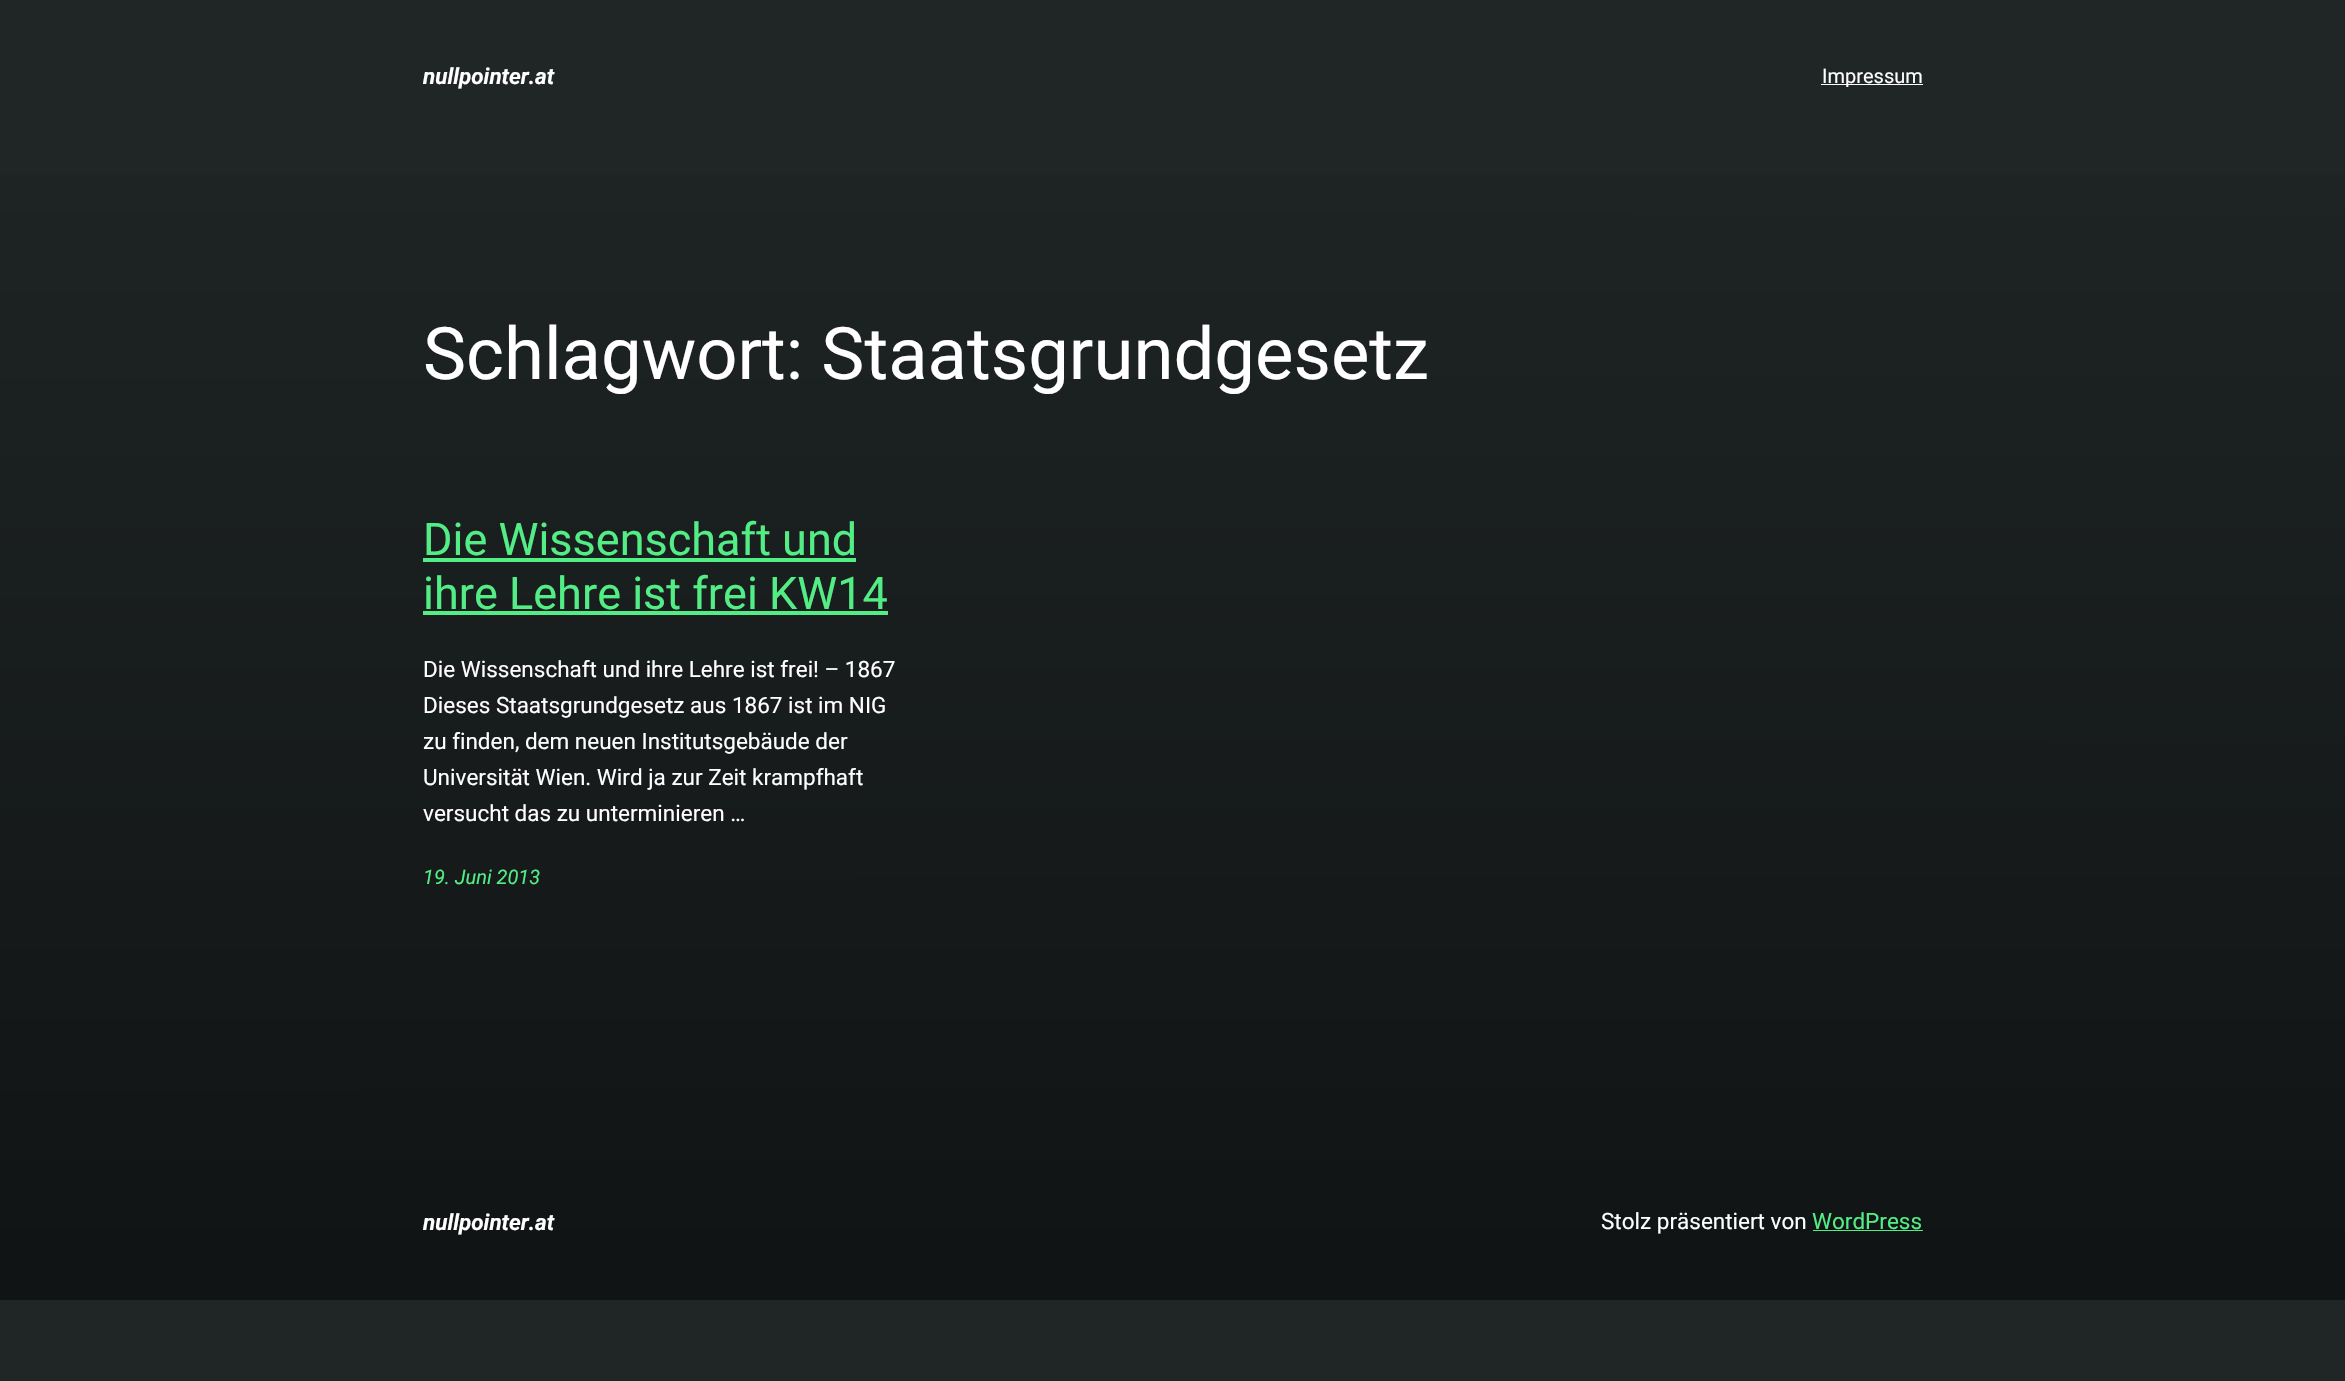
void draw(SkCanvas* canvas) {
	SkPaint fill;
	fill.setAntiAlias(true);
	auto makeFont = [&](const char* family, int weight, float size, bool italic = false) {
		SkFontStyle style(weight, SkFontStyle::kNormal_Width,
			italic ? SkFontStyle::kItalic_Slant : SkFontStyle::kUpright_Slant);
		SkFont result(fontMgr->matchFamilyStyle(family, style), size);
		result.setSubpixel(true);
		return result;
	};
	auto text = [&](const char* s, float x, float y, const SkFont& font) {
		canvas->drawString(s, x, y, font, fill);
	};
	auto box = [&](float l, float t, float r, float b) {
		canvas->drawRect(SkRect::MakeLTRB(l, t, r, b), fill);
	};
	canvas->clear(0xFF202626);
	{
		const SkColor colors[] = {0xFF202626, 0xFF010101};
		const float stops[] = {0, 1};
		const SkPoint ends[] = {{1172, 0}, {1173, 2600}};
		fill.setShader(SkGradientShader::MakeLinear(ends, colors, stops, 2, SkTileMode::kClamp));
		fill.setAlpha(255);
	}
	box(0, 175, 2345, 1300);
	fill.setShader(nullptr);
	fill.setColor(0xFFFFFFFF);
	box(1821, 84, 1923, 85);
	fill.setColor(0xFF53ED85);
	box(423, 558, 856, 562);
	box(423, 611, 888, 615);
	box(1813, 1230, 1923, 1231);
	auto font1 = makeFont("Roboto", 700, 22.5f, true);
	fill.setColor(0xFFFFFFFF);
	text("nullpointer.at", 423, 84, font1);
	auto font2 = makeFont("Roboto", 400, 20);
	text("Impressum", 1822, 83, font2);
	auto font3 = makeFont("Roboto", 400, 72.5f);
	text("Schlagwort: Staatsgrundgesetz", 423, 379, font3);
	auto font4 = makeFont("Roboto", 400, 45);
	fill.setColor(0xFF53ED85);
	text("Die Wissenschaft und", 423, 555, font4);
	text("ihre Lehre ist frei KW14", 423, 609, font4);
	auto font5 = makeFont("Roboto", 400, 22.5f);
	fill.setColor(0xFFFFFFFF);
	text("Die Wissenschaft und ihre Lehre ist frei! – 1867", 423, 677, font5);
	text("Dieses Staatsgrundgesetz aus 1867 ist im NIG", 423, 713, font5);
	text("zu finden, dem neuen Institutsgebäude der", 423, 749, font5);
	text("Universität Wien. Wird ja zur Zeit krampfhaft", 423, 785, font5);
	text("versucht das zu unterminieren …", 423, 821, font5);
	auto font6 = makeFont("Roboto", 400, 20, true);
	fill.setColor(0xFF53ED85);
	text("19. Juni 2013", 423, 884, font6);
	fill.setColor(0xFFFFFFFF);
	text("nullpointer.at", 423, 1230, font1);
	text("Stolz präsentiert von", 1601, 1229, font5);
	fill.setColor(0xFF53ED85);
	text("WordPress", 1812, 1229, font5);
}
